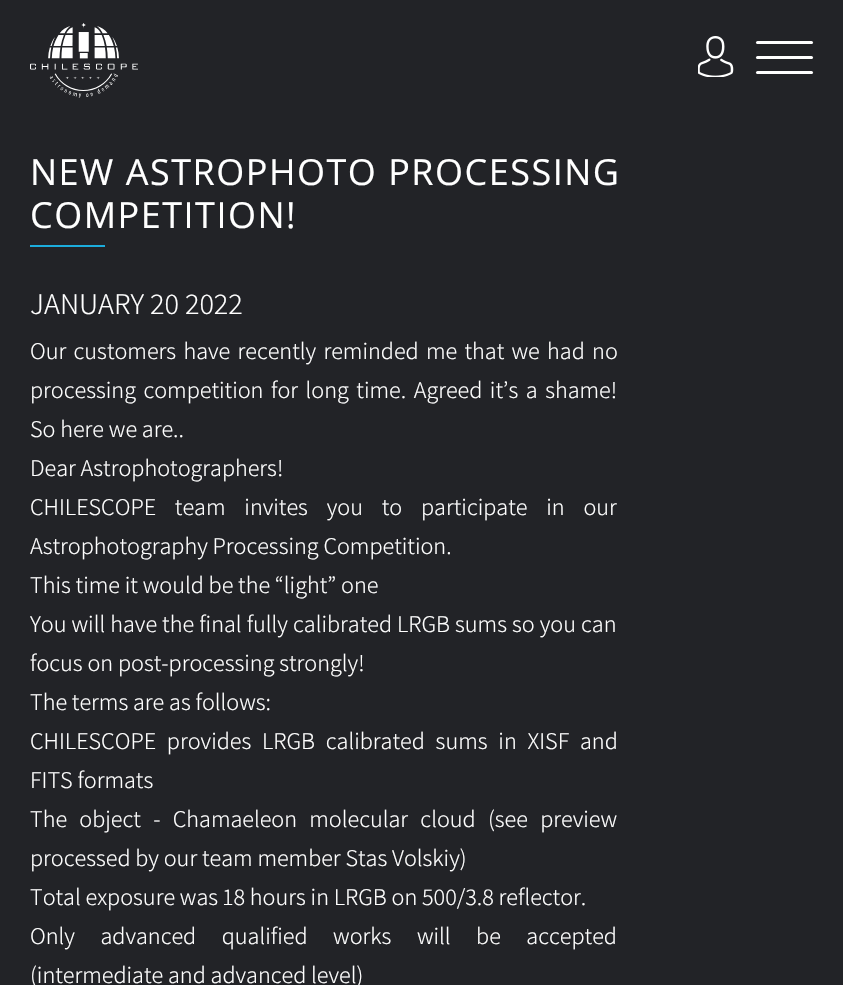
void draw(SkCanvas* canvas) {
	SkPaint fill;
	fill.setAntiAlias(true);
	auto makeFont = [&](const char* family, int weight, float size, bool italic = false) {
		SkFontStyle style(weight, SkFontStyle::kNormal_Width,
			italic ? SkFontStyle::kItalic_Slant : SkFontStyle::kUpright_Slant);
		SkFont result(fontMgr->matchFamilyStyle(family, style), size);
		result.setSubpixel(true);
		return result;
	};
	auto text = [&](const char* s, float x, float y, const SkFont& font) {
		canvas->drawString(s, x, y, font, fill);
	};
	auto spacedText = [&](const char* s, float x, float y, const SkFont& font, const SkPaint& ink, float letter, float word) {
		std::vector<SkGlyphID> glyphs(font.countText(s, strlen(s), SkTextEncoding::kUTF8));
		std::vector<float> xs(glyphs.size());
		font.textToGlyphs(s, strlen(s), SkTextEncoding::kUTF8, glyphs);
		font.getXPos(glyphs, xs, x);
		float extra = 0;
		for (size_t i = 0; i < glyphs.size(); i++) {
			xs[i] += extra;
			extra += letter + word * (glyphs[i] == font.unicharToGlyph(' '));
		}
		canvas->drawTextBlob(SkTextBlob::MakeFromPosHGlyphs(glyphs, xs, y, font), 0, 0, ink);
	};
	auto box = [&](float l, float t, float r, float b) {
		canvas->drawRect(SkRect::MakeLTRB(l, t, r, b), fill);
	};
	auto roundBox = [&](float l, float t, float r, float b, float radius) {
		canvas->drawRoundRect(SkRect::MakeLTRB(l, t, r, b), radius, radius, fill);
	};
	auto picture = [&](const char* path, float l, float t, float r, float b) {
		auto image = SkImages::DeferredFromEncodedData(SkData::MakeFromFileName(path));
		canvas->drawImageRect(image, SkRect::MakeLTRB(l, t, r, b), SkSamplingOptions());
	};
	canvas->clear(0xFF222327);
	picture("image0.png", 30, 23, 138, 98);
	picture("image1.png", 698, 36, 734, 77);
	fill.setColor(0xFFFFFFFF);
	roundBox(756, 41, 813, 44, 1.5f);
	roundBox(756, 56, 813, 59, 1.5f);
	roundBox(756, 71, 813, 74, 1.5f);
	fill.setColor(0xFF1CACDC);
	box(30, 245, 105, 247);
	auto font1 = makeFont("Open Sans", 400, 36);
	fill.setColor(0xFFFFFFFF);
	spacedText("NEW ASTROPHOTO PROCESSING", 30, 185, font1, fill, 1.5f, 0);
	spacedText("COMPETITION!", 30, 228, font1, fill, 1.5f, 0);
	auto font2 = makeFont("Assistant", 300, 30);
	text("JANUARY 20 2022", 30, 314, font2);
	auto font3 = makeFont("Assistant", 300, 24);
	spacedText("Our customers have recently reminded me that we had no", 30, 359, font3, fill, 0, 2.5f);
	spacedText("processing competition for long time. Agreed it’s a shame!", 30, 398, font3, fill, 0, 2.75f);
	text("So here we are..", 30, 437, font3);
	text("Dear Astrophotographers!", 30, 476, font3);
	spacedText("CHILESCOPE team invites you to participate in our", 30, 515, font3, fill, 0, 14);
	text("Astrophotography Processing Competition.", 30, 554, font3);
	text("This time it would be the “light” one", 30, 593, font3);
	spacedText("You will have the final fully calibrated LRGB sums so you can", 30, 632, font3, fill, 0, 0.25f);
	text("focus on post-processing strongly!", 30, 671, font3);
	text("The terms are as follows:", 30, 710, font3);
	spacedText("CHILESCOPE provides LRGB calibrated sums in XISF and", 30, 749, font3, fill, 0, 6);
	text("FITS formats", 30, 788, font3);
	spacedText("The object - Chamaeleon molecular cloud (see preview", 30, 827, font3, fill, 0, 7.5f);
	text("processed by our team member Stas Volskiy)", 30, 866, font3);
	text("Total exposure was 18 hours in LRGB on 500/3.8 reflector.", 30, 905, font3);
	spacedText("Only advanced qualified works will be accepted", 30, 944, font3, fill, 0, 20.75f);
	text("(intermediate and advanced level)", 30, 983, font3);
}
